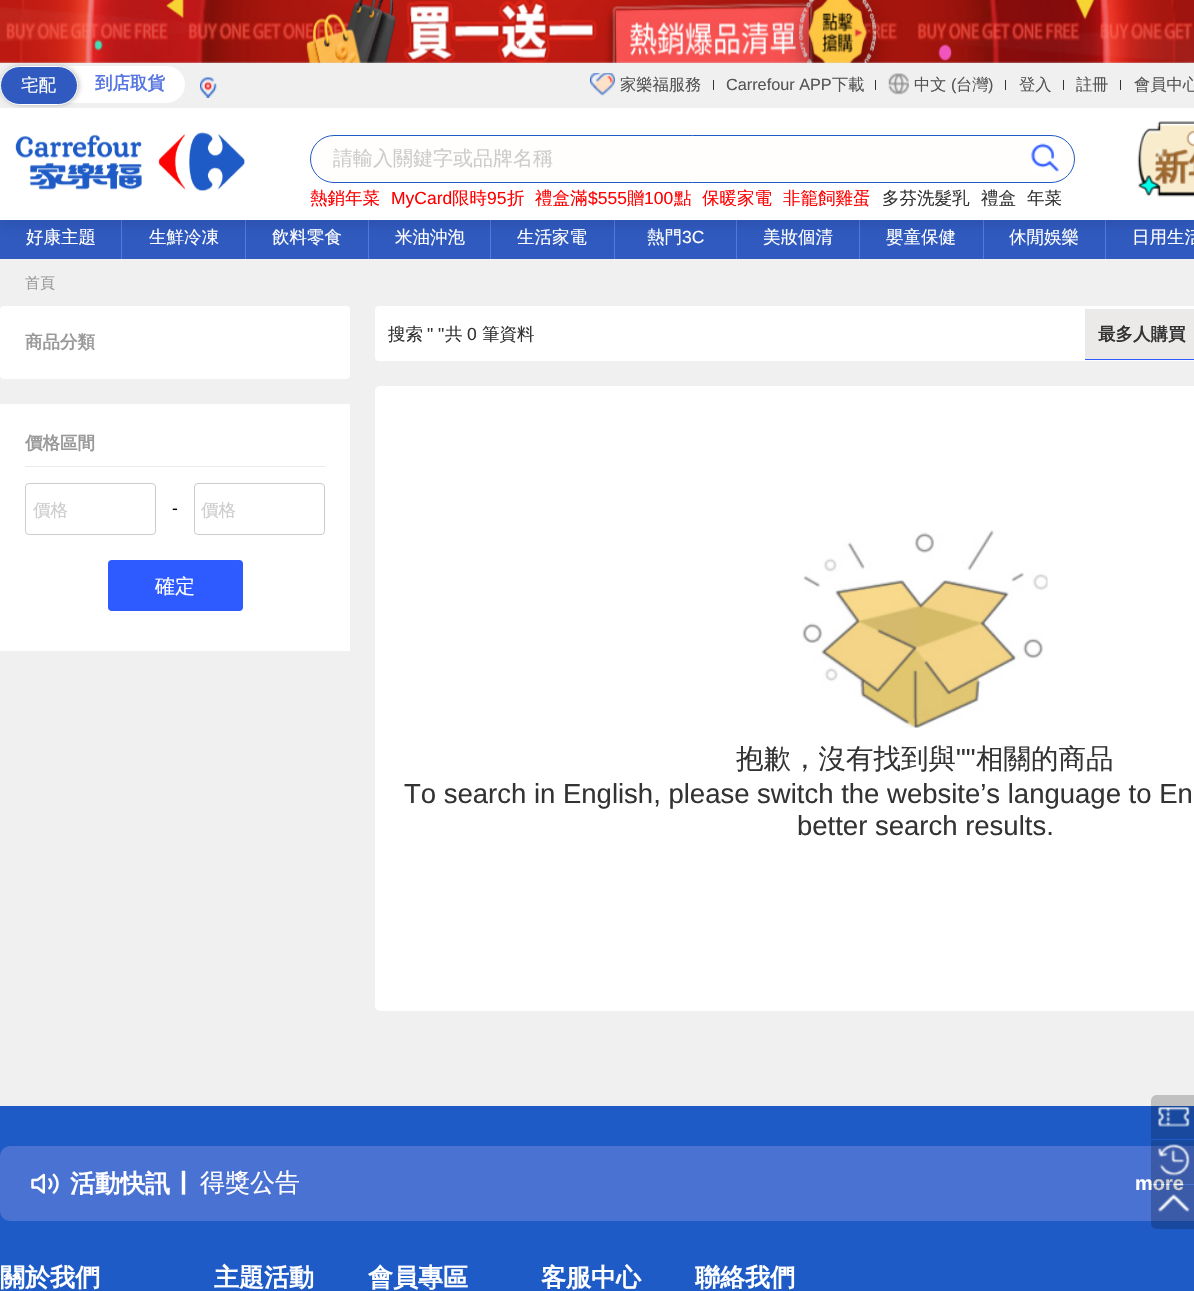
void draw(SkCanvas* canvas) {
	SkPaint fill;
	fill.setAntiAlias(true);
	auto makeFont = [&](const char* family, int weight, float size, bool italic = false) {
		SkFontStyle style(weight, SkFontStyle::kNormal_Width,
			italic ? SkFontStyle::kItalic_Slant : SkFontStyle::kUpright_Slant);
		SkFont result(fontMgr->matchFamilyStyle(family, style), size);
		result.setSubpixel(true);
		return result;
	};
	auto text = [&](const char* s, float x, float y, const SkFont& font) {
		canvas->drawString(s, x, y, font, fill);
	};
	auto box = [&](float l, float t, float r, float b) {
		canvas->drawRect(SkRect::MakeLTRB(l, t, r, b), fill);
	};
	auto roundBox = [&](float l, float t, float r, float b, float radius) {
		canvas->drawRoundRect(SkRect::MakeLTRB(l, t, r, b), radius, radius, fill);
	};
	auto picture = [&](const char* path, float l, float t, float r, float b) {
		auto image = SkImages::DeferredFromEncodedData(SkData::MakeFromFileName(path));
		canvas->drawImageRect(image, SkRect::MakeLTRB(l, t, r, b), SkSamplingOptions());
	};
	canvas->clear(0xFFF0F0F0);
	fill.setColor(0xFF305ABF);
	box(0, 220, 1194, 259);
	fill.setColor(0xFF5877E1);
	box(121, 216, 122, 259);
	box(245, 216, 246, 259);
	box(368, 216, 369, 259);
	box(490, 216, 491, 259);
	box(614, 216, 615, 259);
	box(736, 216, 737, 259);
	box(859, 216, 860, 259);
	box(983, 216, 984, 259);
	box(1105, 216, 1106, 259);
	fill.setColor(0x1A000000);
	fill.setMaskFilter(SkMaskFilter::MakeBlur(kNormal_SkBlurStyle, 6));
	canvas->drawRect(SkRect::MakeLTRB(0, 4, 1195, 224), fill);
	fill.setMaskFilter(nullptr);
	picture("image0.png", 0, 0, 1194, 63);
	fill.setColor(0xFFF0F0F0);
	box(0, 63, 1194, 108);
	fill.setColor(0xFFFFFFFF);
	roundBox(0, 66, 185, 103, 18.5f);
	fill.setColor(0x40000000);
	fill.setMaskFilter(SkMaskFilter::MakeBlur(kNormal_SkBlurStyle, 2.5f));
	canvas->drawRoundRect(SkRect::MakeLTRB(1, 66, 79, 105), 19.5f, 19.5f, fill);
	fill.setMaskFilter(nullptr);
	fill.setColor(0xFF305ABF);
	canvas->drawRoundRect(SkRect::MakeLTRB(0.5f, 66.5f, 77.5f, 104.5f), 19, 19, fill);
	fill.setStyle(SkPaint::kStroke_Style);
	fill.setStrokeWidth(1);
	fill.setColor(0xFFFFFFFF);
	canvas->drawRoundRect(SkRect::MakeLTRB(0.5f, 66.5f, 77.5f, 104.5f), 19, 19, fill);
	picture("image1.png", 200, 77, 217, 98);
	picture("image2.png", 590, 73, 615, 96);
	fill.setStyle(SkPaint::kFill_Style);
	fill.setColor(0xFF333333);
	box(713, 80, 714, 90);
	box(875, 80, 876, 90);
	picture("image3.png", 888, 73, 909, 95);
	box(1005, 80, 1006, 90);
	box(1063, 80, 1064, 90);
	box(1120, 80, 1121, 90);
	fill.setColor(0xFFFFFFFF);
	box(0, 108, 1194, 220);
	picture("image4.png", 15, 131, 245, 191);
	fill.setColor(0xFFFFFEFC);
	canvas->drawRoundRect(SkRect::MakeLTRB(310.5f, 135.5f, 1074.5f, 182.5f), 23.5f, 23.5f, fill);
	fill.setStyle(SkPaint::kStroke_Style);
	fill.setColor(0xFF1E5BC6);
	canvas->drawRoundRect(SkRect::MakeLTRB(310.5f, 135.5f, 1074.5f, 182.5f), 23.5f, 23.5f, fill);
	picture("image5.png", 1031, 143, 1059, 172);
	picture("image6.png", 1137, 121, 1194, 197);
	fill.setStyle(SkPaint::kFill_Style);
	fill.setColor(0xFFFFFFFF);
	roundBox(0, 306, 350, 379, 4);
	box(0, 404, 350, 651);
	fill.setColor(0xFFEBEAE8);
	box(25, 466, 325, 467);
	fill.setStyle(SkPaint::kStroke_Style);
	fill.setColor(0xFFCCCCCC);
	canvas->drawRoundRect(SkRect::MakeLTRB(25.5f, 483.5f, 155.5f, 534.5f), 3.5f, 3.5f, fill);
	canvas->drawRoundRect(SkRect::MakeLTRB(194.5f, 483.5f, 324.5f, 534.5f), 3.5f, 3.5f, fill);
	fill.setStyle(SkPaint::kFill_Style);
	fill.setColor(0xFF2E5BFF);
	roundBox(108, 560, 243, 611, 4);
	fill.setColor(0xFFFFFFFF);
	roundBox(375, 306, 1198, 361, 4);
	fill.setColor(0xFFEBEAE8);
	box(1085, 309, 1194, 359);
	fill.setColor(0xFF2E5BFF);
	box(1085, 359, 1194, 360);
	fill.setColor(0xFFFFFFFF);
	roundBox(375, 386, 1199, 1011, 5);
	picture("image7.png", 802, 530, 1048, 728);
	fill.setColor(0xFF1E5BC6);
	box(0, 1106, 1194, 1291);
	fill.setColor(0x33000000);
	canvas->drawPath(SkPathBuilder().moveTo(1157, 1095).lineTo(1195, 1095).lineTo(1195, 1139).lineTo(1151, 1139).lineTo(1151, 1101).cubicTo(1151, 1097.5f, 1153.5f, 1095, 1157, 1095).close().detach(), fill);
	picture("image8.png", 1158, 1107, 1190, 1127);
	fill.setColor(0xFF4A72D3);
	roundBox(0, 1146, 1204, 1221, 10);
	picture("image11.png", 31, 1173, 59, 1194);
	auto font1 = makeFont("WenQuanYi Zen Hei", 500, 17.5f);
	fill.setColor(0xFFFFFFFF);
	text("宅配", 21, 91, font1);
	auto font2 = makeFont("WenQuanYi Zen Hei", 700, 17.5f);
	fill.setColor(0xFF5877E1);
	text("到店取貨", 95, 89, font2);
	auto font3 = makeFont("WenQuanYi Zen Hei", 500, 16.25f);
	fill.setColor(0xFF555555);
	text("家樂福服務", 620, 90, font3);
	auto font4 = makeFont("Liberation Sans", 400, 16.25f);
	text("Carrefour APP", 726, 90, font4);
	text("下載", 832, 90, font3);
	text("中文", 914, 90, font3);
	text("(", 951, 90, font4);
	text("台灣", 956, 90, font3);
	text(")", 988, 90, font4);
	text("登入", 1019, 90, font3);
	text("註冊", 1076, 90, font3);
	text("會員中心", 1134, 90, font3);
	auto font5 = makeFont("WenQuanYi Zen Hei", 500, 20);
	fill.setColor(0xFFCCCCCC);
	text("請輸入關鍵字或品牌名稱", 333, 165, font5);
	fill.setColor(0xFFFF0000);
	text("熱銷年菜", 310, 204, font1);
	auto font6 = makeFont("Liberation Sans", 400, 17.5f);
	text("MyCard", 391, 204, font6);
	text("限時", 452, 204, font1);
	text("95", 487, 204, font6);
	text("折", 507, 204, font1);
	text("禮盒滿", 535, 204, font1);
	text("$555", 588, 204, font6);
	text("贈", 627, 204, font1);
	text("100", 644, 204, font6);
	text("點", 674, 204, font1);
	text("保暖家電", 702, 204, font1);
	text("非籠飼雞蛋", 783, 204, font1);
	fill.setColor(0xFF333333);
	text("多芬洗髮乳", 882, 204, font1);
	text("禮盒", 981, 204, font1);
	text("年菜", 1027, 204, font1);
	fill.setColor(0xFFFFFFFF);
	text("好康主題", 26, 243, font1);
	text("生鮮冷凍", 149, 243, font1);
	text("飲料零食", 272, 243, font1);
	text("米油沖泡", 395, 243, font1);
	text("生活家電", 517, 243, font1);
	text("熱門", 647, 243, font1);
	text("3C", 682, 243, font6);
	text("美妝個清", 763, 243, font1);
	text("嬰童保健", 886, 243, font1);
	text("休閒娛樂", 1009, 243, font1);
	text("日用生活", 1132, 243, font1);
	auto font7 = makeFont("WenQuanYi Zen Hei", 500, 15);
	fill.setColor(0xFF999999);
	text("首頁", 25, 288, font7);
	text("商品分類", 25, 348, font2);
	text("價格區間", 25, 449, font2);
	fill.setColor(0xFFCCCCCC);
	text("價格", 33, 516, font1);
	fill.setColor(0xFF000000);
	text("-", 172, 514, font6);
	fill.setColor(0xFFCCCCCC);
	text("價格", 201, 516, font1);
	fill.setColor(0xFFFFFFFF);
	text("確定", 155, 593, font5);
	fill.setColor(0xFF333333);
	text("搜索", 388, 340, font1);
	text("\" \"", 427, 340, font6);
	text("共", 445, 340, font1);
	text("0", 467, 340, font6);
	text("筆資料", 482, 340, font1);
	text("最多人購買", 1098, 340, font2);
	auto font8 = makeFont("WenQuanYi Zen Hei", 500, 27.5f);
	text("抱歉，沒有找到與", 736, 768, font8);
	auto font9 = makeFont("Liberation Sans", 400, 27.5f);
	text("\"\"", 956, 768, font9);
	text("相關的商品", 976, 768, font8);
	text("To search in English, please switch the website’s language to En", 404, 803, font9);
	text("better search results.", 797, 835, font9);
	auto font10 = makeFont("WenQuanYi Zen Hei", 700, 25);
	fill.setColor(0xFFFFFFFF);
	text("活動快訊", 70, 1192, font10);
	auto font11 = makeFont("Liberation Sans", 700, 25);
	text("|", 180, 1189, font11);
	auto font12 = makeFont("WenQuanYi Zen Hei", 500, 25);
	text("得獎公告", 200, 1191, font12);
	auto font13 = makeFont("Liberation Sans", 700, 20);
	text("more", 1135, 1190, font13);
	fill.setColor(0x33000000);
	canvas->drawPath(SkPathBuilder().moveTo(1151, 1185).lineTo(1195, 1185).lineTo(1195, 1229).lineTo(1157, 1229).cubicTo(1153.5f, 1229, 1151, 1226.5f, 1151, 1223).close().detach(), fill);
	picture("image10.png", 1158, 1194, 1190, 1212);
	box(1151, 1140, 1194, 1184);
	picture("image9.png", 1158, 1144, 1190, 1176);
	fill.setColor(0xFFFFFFFF);
	text("關於我們", 0, 1286, font10);
	text("主題活動", 214, 1286, font10);
	text("會員專區", 368, 1286, font10);
	text("客服中心", 541, 1286, font10);
	text("聯絡我們", 695, 1286, font10);
}
